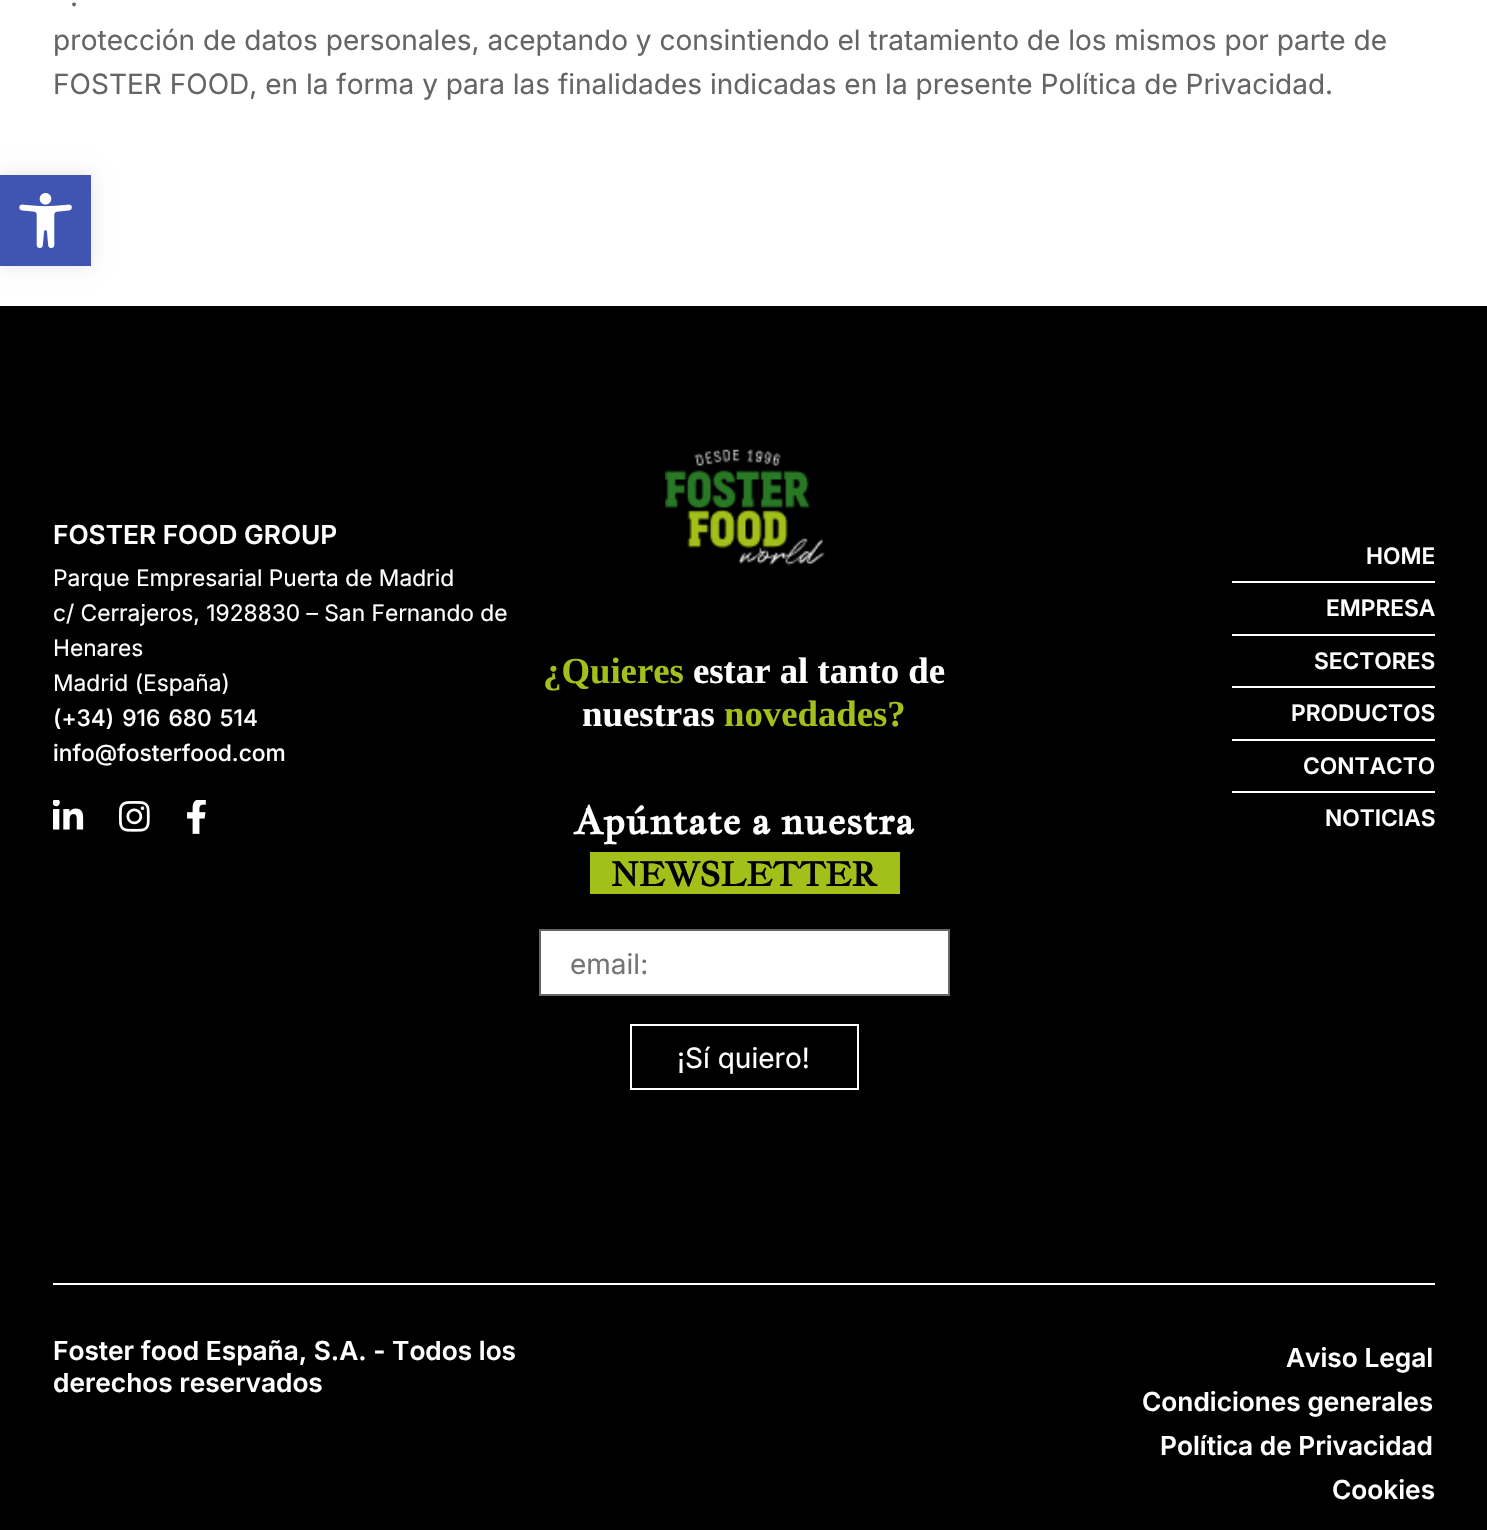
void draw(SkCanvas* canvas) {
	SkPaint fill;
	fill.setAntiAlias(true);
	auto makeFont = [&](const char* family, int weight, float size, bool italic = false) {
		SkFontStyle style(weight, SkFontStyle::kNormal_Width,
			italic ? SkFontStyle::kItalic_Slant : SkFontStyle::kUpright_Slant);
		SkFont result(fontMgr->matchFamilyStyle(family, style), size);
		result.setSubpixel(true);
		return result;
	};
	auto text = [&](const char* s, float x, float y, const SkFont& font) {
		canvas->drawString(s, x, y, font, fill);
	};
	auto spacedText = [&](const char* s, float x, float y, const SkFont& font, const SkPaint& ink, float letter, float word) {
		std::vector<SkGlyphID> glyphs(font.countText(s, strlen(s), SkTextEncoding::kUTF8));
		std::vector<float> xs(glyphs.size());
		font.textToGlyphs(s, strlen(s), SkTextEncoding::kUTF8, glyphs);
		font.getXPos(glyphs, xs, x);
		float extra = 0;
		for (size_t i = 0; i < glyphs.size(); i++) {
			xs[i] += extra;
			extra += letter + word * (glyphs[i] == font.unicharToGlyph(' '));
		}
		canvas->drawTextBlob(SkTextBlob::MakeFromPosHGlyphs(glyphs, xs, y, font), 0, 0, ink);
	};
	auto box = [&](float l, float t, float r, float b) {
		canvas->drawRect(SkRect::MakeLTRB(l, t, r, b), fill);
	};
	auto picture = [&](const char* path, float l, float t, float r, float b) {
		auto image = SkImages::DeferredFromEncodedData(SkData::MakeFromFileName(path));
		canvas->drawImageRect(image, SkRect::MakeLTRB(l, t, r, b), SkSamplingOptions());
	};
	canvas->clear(0xFFFFFFFF);
	fill.setColor(0x1A000000);
	fill.setMaskFilter(SkMaskFilter::MakeBlur(kNormal_SkBlurStyle, 9));
	canvas->drawRect(SkRect::MakeLTRB(0, 175, 91, 266), fill);
	fill.setMaskFilter(nullptr);
	fill.setColor(0xFF4054B2);
	box(0, 175, 91, 266);
	picture("image0.png", 19, 193, 72, 249);
	fill.setColor(0xFF000000);
	box(0, 306, 1487, 1530);
	picture("image1.png", 53, 800, 84, 830);
	picture("image2.png", 119, 801, 150, 832);
	picture("image3.png", 187, 800, 206, 834);
	picture("image4.png", 665, 449, 825, 566);
	fill.setColor(0xFFA2BF1A);
	box(590, 852, 900, 894);
	fill.setColor(0xFFFFFFFF);
	canvas->drawRect(SkRect::MakeLTRB(540, 930, 949, 995), fill);
	fill.setStyle(SkPaint::kStroke_Style);
	fill.setStrokeWidth(2);
	fill.setColor(0xFF666666);
	canvas->drawRect(SkRect::MakeLTRB(540, 930, 949, 995), fill);
	fill.setColor(0xFFFFFFFF);
	canvas->drawRect(SkRect::MakeLTRB(631, 1025, 858, 1089), fill);
	fill.setStyle(SkPaint::kFill_Style);
	box(1232, 581, 1435, 583);
	box(1232, 634, 1435, 636);
	box(1232, 686, 1435, 688);
	box(1232, 739, 1435, 741);
	box(1232, 791, 1435, 793);
	box(53, 1283, 1435, 1285);
	auto font1 = makeFont("Inter", 400, 28);
	fill.setColor(0xFF636567);
	text(".", 70, 6, font1);
	text("protección de datos personales, aceptando y consintiendo el tratamiento de los mismos por parte de", 53, 50, font1);
	text("FOSTER FOOD, en la forma y para las finalidades indicadas en la presente Política de Privacidad.", 53, 94, font1);
	auto font2 = makeFont("Inter", 600, 26.25f);
	fill.setColor(0xFFFFFFFF);
	text("FOSTER FOOD GROUP", 53, 544, font2);
	auto font3 = makeFont("Inter", 400, 22.75f);
	text("Parque Empresarial Puerta de Madrid", 53, 586, font3);
	text("c/ Cerrajeros, 1928830 – San Fernando de", 53, 621, font3);
	text("Henares", 53, 656, font3);
	text("Madrid (España)", 53, 691, font3);
	auto font4 = makeFont("Inter", 500, 22.75f);
	spacedText("(+34) 916 680 514", 53, 726, font4, fill, 0, 2);
	text("info@fosterfood.com", 53, 761, font4);
	auto font5 = makeFont("Liberation Serif", 700, 36.75f);
	fill.setColor(0xFFA2BF1A);
	text("¿Quieres", 543, 683, font5);
	fill.setColor(0xFFFFFFFF);
	text("estar al tanto de", 693, 683, font5);
	text("nuestras", 582, 726, font5);
	fill.setColor(0xFFA2BF1A);
	text("novedades?", 724, 726, font5);
	auto font6 = makeFont("Jacques Francois", 700, 38.5f);
	fill.setColor(0xFFFFFFFF);
	text("Apúntate a nuestra", 573, 834, font6);
	auto font7 = makeFont("Jacques Francois", 700, 33.25f);
	fill.setColor(0xFF000000);
	text("NEWSLETTER", 611, 886, font7);
	fill.setColor(0xFF757575);
	text("email:", 570, 974, font1);
	fill.setColor(0xFFFFFFFF);
	text("¡Sí quiero!", 677, 1068, font1);
	auto font8 = makeFont("Inter", 600, 22.75f);
	text("HOME", 1366, 564, font8);
	text("EMPRESA", 1326, 616, font8);
	text("SECTORES", 1314, 669, font8);
	text("PRODUCTOS", 1291, 721, font8);
	text("CONTACTO", 1303, 774, font8);
	text("NOTICIAS", 1325, 826, font8);
	text("Foster food España, S.A. - Todos los", 53, 1360, font2);
	text("derechos reservados", 53, 1392, font2);
	text("Aviso Legal", 1286, 1367, font2);
	text("Condiciones generales", 1142, 1411, font2);
	text("Política de Privacidad", 1160, 1455, font2);
	text("Cookies", 1332, 1499, font2);
}
